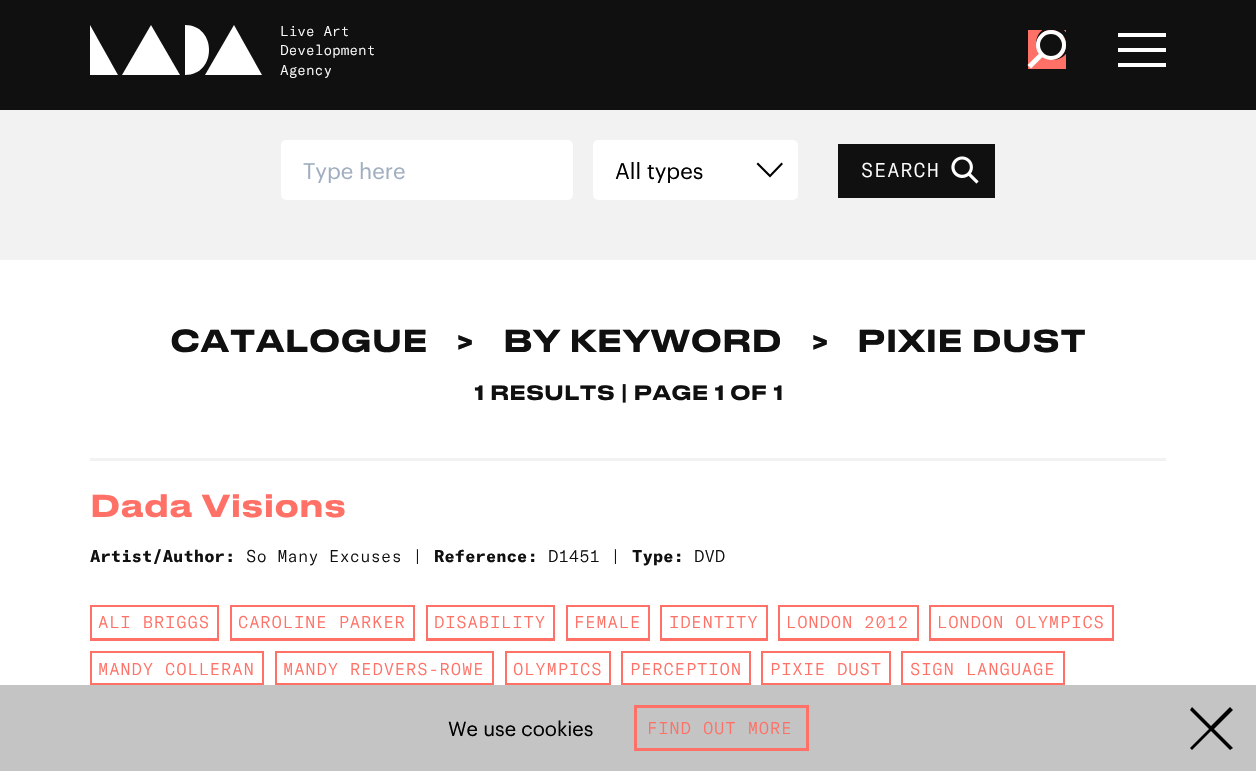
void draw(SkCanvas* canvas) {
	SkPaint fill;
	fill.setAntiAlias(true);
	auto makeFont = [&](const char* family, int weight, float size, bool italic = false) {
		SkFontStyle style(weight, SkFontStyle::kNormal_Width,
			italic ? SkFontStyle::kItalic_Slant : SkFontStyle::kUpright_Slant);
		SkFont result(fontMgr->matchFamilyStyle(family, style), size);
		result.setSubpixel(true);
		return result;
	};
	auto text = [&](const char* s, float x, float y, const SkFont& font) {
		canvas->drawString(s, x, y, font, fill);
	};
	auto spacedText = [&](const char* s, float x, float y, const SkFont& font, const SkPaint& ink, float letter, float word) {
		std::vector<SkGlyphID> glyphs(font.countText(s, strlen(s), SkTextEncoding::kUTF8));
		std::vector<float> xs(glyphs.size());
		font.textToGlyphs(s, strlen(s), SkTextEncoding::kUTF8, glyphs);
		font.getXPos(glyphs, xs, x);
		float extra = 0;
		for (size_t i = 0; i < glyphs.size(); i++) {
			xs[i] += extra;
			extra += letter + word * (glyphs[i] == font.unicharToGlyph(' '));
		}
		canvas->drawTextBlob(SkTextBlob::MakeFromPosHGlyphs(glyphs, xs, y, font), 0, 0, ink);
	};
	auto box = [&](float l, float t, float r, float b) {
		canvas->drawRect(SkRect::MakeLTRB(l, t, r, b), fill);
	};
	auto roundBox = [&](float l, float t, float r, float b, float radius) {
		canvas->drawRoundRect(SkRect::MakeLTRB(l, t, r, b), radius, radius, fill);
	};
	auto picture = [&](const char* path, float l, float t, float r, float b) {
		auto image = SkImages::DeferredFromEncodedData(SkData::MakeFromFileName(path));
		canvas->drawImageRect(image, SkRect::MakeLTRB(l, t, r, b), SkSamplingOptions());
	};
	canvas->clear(0xFFFFFFFF);
	fill.setColor(0xFF101010);
	box(0, 0, 1256, 110);
	fill.setColor(0xFFFFFFFF);
	canvas->drawPath(SkPathBuilder().moveTo(205, 75).lineTo(234, 25).lineTo(262, 75).close().detach(), fill);
	canvas->drawPath(SkPathBuilder().moveTo(122, 75).lineTo(151, 25).lineTo(180, 75).close().detach(), fill);
	canvas->drawPath(SkPathBuilder().moveTo(90, 25).lineTo(90, 75).lineTo(118, 75).close().detach(), fill);
	canvas->drawPath(SkPathBuilder().moveTo(185, 25).lineTo(185, 75).cubicTo(217, 75, 217, 25, 185, 25).detach(), fill);
	fill.setColor(0xFFFF7166);
	box(1028, 30, 1066, 69);
	fill.setColor(0xFFFFFFFF);
	canvas->drawPath(SkPathBuilder().moveTo(1027.5f, 65).lineTo(1062.5f, 30.5f).lineTo(1065.5f, 34).lineTo(1031, 68.5f).close().detach(), fill);
	fill.setColor(0xFF101010);
	canvas->drawPath(SkPathBuilder().moveTo(1053, 26).cubicTo(1042.5f, 26, 1034.5f, 36, 1036.5f, 46).cubicTo(1036, 41, 1038.5f, 35.5f, 1043, 32.5f).cubicTo(1046, 30.5f, 1050.5f, 29.5f, 1054.5f, 30.5f).cubicTo(1071.5f, 33.5f, 1069.5f, 59, 1052, 60).cubicTo(1056, 60, 1059.5f, 59, 1062.5f, 57).cubicTo(1076.5f, 48, 1069.5f, 26, 1053, 26).close().detach(), fill);
	canvas->drawCircle(1051, 45, 13, fill);
	fill.setStyle(SkPaint::kStroke_Style);
	fill.setStrokeWidth(4);
	fill.setColor(0xFFFFFFFF);
	canvas->drawCircle(1051, 45, 13, fill);
	fill.setStyle(SkPaint::kFill_Style);
	box(1118, 33, 1166, 37);
	box(1118, 48, 1166, 52);
	box(1118, 63, 1166, 67);
	fill.setColor(0xFFF2F2F2);
	box(0, 110, 1256, 260);
	fill.setColor(0xFFFFFFFF);
	roundBox(281, 140, 573, 200, 5);
	roundBox(593, 140, 798, 200, 5);
	fill.setColor(0xFF000000);
	canvas->drawPath(SkPathBuilder().moveTo(770, 174.5f).lineTo(781.5f, 162.5f).lineTo(783, 164).lineTo(770, 177.5f).lineTo(756.5f, 164).lineTo(758, 162.5f).close().detach(), fill);
	fill.setColor(0xFF101010);
	box(838, 144, 995, 198);
	picture("image0.png", 951, 156, 979, 184);
	fill.setColor(0xFFF2F2F2);
	box(90, 458, 1166, 461);
	fill.setStyle(SkPaint::kStroke_Style);
	fill.setStrokeWidth(2);
	fill.setColor(0xFFFF7166);
	canvas->drawRect(SkRect::MakeLTRB(91, 606, 218, 639), fill);
	fill.setStyle(SkPaint::kFill_Style);
	box(90, 640, 219, 641);
	fill.setStyle(SkPaint::kStroke_Style);
	canvas->drawRect(SkRect::MakeLTRB(231, 606, 414, 639), fill);
	fill.setStyle(SkPaint::kFill_Style);
	box(230, 640, 415, 641);
	fill.setStyle(SkPaint::kStroke_Style);
	canvas->drawRect(SkRect::MakeLTRB(427, 606, 554, 639), fill);
	fill.setStyle(SkPaint::kFill_Style);
	box(426, 640, 555, 641);
	fill.setStyle(SkPaint::kStroke_Style);
	canvas->drawRect(SkRect::MakeLTRB(567, 606, 649, 639), fill);
	fill.setStyle(SkPaint::kFill_Style);
	box(566, 640, 650, 641);
	fill.setStyle(SkPaint::kStroke_Style);
	canvas->drawRect(SkRect::MakeLTRB(661, 606, 767, 639), fill);
	fill.setStyle(SkPaint::kFill_Style);
	box(660, 640, 768, 641);
	fill.setStyle(SkPaint::kStroke_Style);
	canvas->drawRect(SkRect::MakeLTRB(779, 606, 918, 639), fill);
	fill.setStyle(SkPaint::kFill_Style);
	box(778, 640, 919, 641);
	fill.setStyle(SkPaint::kStroke_Style);
	canvas->drawRect(SkRect::MakeLTRB(930, 606, 1113, 639), fill);
	fill.setStyle(SkPaint::kFill_Style);
	box(929, 640, 1114, 641);
	fill.setStyle(SkPaint::kStroke_Style);
	canvas->drawRect(SkRect::MakeLTRB(91, 652, 263, 684), fill);
	canvas->drawRect(SkRect::MakeLTRB(276, 652, 493, 684), fill);
	canvas->drawRect(SkRect::MakeLTRB(506, 652, 610, 684), fill);
	canvas->drawRect(SkRect::MakeLTRB(622, 652, 750, 684), fill);
	canvas->drawRect(SkRect::MakeLTRB(762, 652, 890, 684), fill);
	canvas->drawRect(SkRect::MakeLTRB(902, 652, 1064, 684), fill);
	fill.setStyle(SkPaint::kFill_Style);
	fill.setColor(0xFFC4C4C4);
	box(0, 685, 1256, 771);
	fill.setStyle(SkPaint::kStroke_Style);
	fill.setStrokeWidth(3);
	fill.setColor(0xFFFF7166);
	canvas->drawRect(SkRect::MakeLTRB(635.5f, 706.5f, 807.5f, 749.5f), fill);
	fill.setStyle(SkPaint::kFill_Style);
	fill.setColor(0xFF000000);
	canvas->drawPath(SkPathBuilder().moveTo(1209, 729).lineTo(1190, 710).lineTo(1192, 707).lineTo(1211, 726).lineTo(1230, 707).lineTo(1233, 710).lineTo(1214, 729).lineTo(1233, 748).lineTo(1230, 750).lineTo(1211, 731).lineTo(1192, 750).lineTo(1190, 748).close().detach(), fill);
	auto font1 = makeFont("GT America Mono", 300, 14);
	fill.setColor(0xFFFFFFFF);
	text("Live Art", 280, 36, font1);
	text("Development", 280, 55, font1);
	text("Agency", 280, 75, font1);
	auto font2 = makeFont("Graphik", 400, 22);
	fill.setColor(0xFFA0AEC0);
	text("Type here", 303, 179, font2);
	fill.setColor(0xFF000000);
	text("All types", 615, 179, font2);
	auto font3 = makeFont("GT America Mono", 300, 19.6f);
	fill.setColor(0xFFFFFFFF);
	spacedText("SEARCH", 861, 177, font3, fill, 1, 0);
	auto font4 = makeFont("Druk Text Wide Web", 500, 30);
	fill.setColor(0xFF101010);
	text("CATALOGUE", 170, 352, font4);
	text(">", 456, 352, font4);
	text("BY KEYWORD", 503, 352, font4);
	text(">", 811, 352, font4);
	text("PIXIE DUST", 857, 352, font4);
	auto font5 = makeFont("Druk Text Wide Web", 500, 19.6f);
	text("1 RESULTS | PAGE 1 OF 1", 474, 400, font5);
	fill.setColor(0xFFFF7166);
	text("Dada Visions", 90, 517, font4);
	auto font6 = makeFont("GT America Mono", 700, 16.75f);
	fill.setColor(0xFF101010);
	text("Artist/Author:", 90, 562, font6);
	auto font7 = makeFont("GT America Mono", 300, 16.75f);
	text("So Many Excuses |", 246, 562, font7);
	text("Reference:", 434, 562, font6);
	text("D1451 |", 548, 562, font7);
	text("Type:", 632, 562, font6);
	text("DVD", 694, 562, font7);
	fill.setColor(0xFFFF7166);
	spacedText("ALI BRIGGS", 98, 628, font7, fill, 0.8f, 0);
	spacedText("CAROLINE PARKER", 238, 628, font7, fill, 0.8f, 0);
	spacedText("DISABILITY", 434, 628, font7, fill, 0.8f, 0);
	spacedText("FEMALE", 574, 628, font7, fill, 0.8f, 0);
	spacedText("IDENTITY", 669, 628, font7, fill, 0.8f, 0);
	spacedText("LONDON 2012", 786, 628, font7, fill, 0.8f, 0);
	spacedText("LONDON OLYMPICS", 937, 628, font7, fill, 0.8f, 0);
	spacedText("MANDY COLLERAN", 98, 675, font7, fill, 0.8f, 0);
	spacedText("MANDY REDVERS-ROWE", 283, 675, font7, fill, 0.8f, 0);
	spacedText("OLYMPICS", 513, 675, font7, fill, 0.8f, 0);
	spacedText("PERCEPTION", 630, 675, font7, fill, 0.8f, 0);
	spacedText("PIXIE DUST", 770, 675, font7, fill, 0.8f, 0);
	spacedText("SIGN LANGUAGE", 910, 675, font7, fill, 0.8f, 0);
	auto font8 = makeFont("Graphik", 400, 20);
	fill.setColor(0xFF000000);
	text("We use cookies", 448, 736, font8);
	fill.setColor(0xFFFF7166);
	spacedText("FIND OUT MORE", 647, 734, font7, fill, 0.8f, 0);
}
